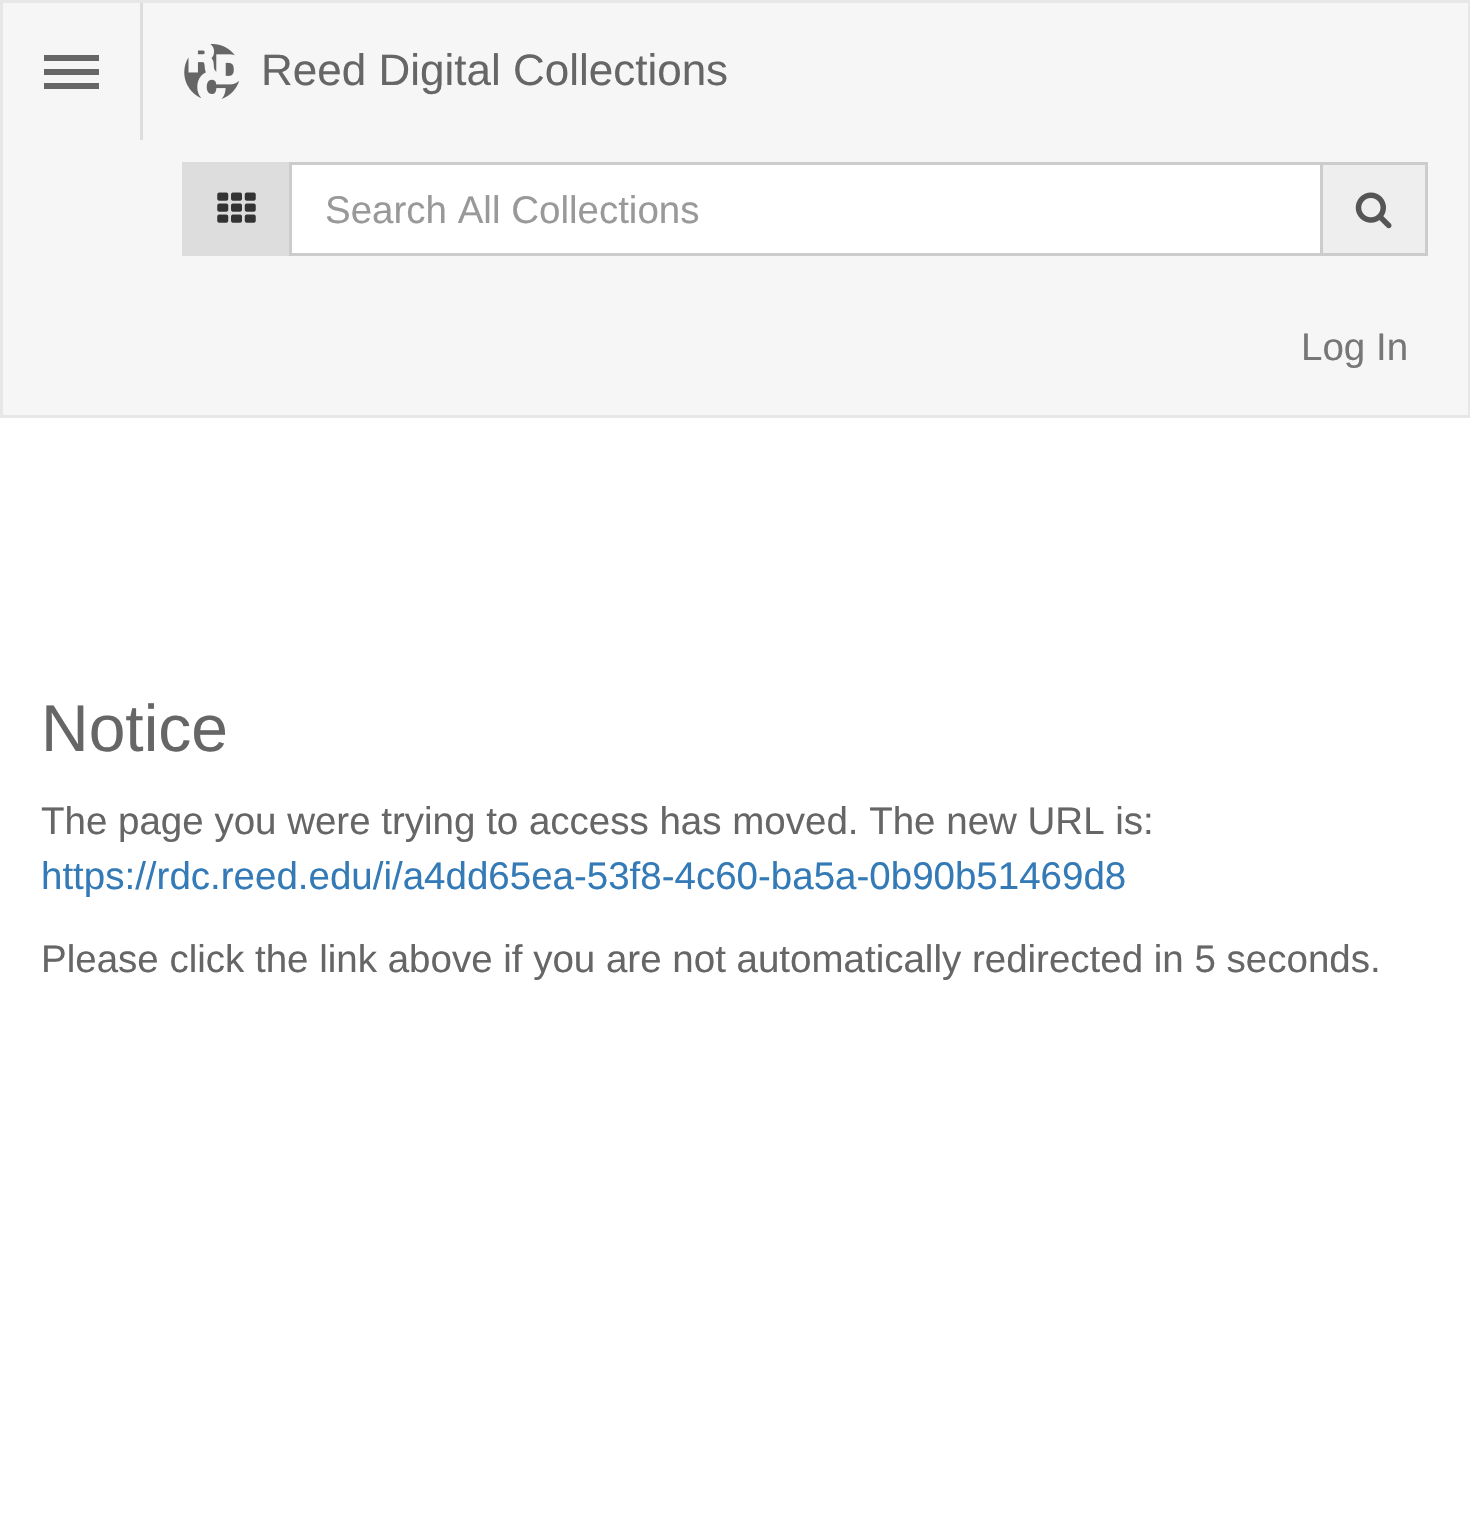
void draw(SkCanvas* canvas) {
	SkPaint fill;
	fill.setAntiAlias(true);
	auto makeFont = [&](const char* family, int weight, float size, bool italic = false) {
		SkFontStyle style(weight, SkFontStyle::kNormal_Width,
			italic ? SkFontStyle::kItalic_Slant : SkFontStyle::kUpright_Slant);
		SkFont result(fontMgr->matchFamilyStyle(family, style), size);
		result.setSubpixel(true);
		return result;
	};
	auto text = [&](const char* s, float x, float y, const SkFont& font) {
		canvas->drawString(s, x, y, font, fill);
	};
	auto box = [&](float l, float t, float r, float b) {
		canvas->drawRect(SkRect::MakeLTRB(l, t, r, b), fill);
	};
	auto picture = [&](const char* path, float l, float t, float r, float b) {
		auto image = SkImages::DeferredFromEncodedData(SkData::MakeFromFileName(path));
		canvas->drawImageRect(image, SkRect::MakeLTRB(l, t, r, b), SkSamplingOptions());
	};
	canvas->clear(0xFFFFFFFF);
	fill.setColor(0xFFF6F6F6);
	canvas->drawRect(SkRect::MakeLTRB(1.5f, 1.5f, 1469.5f, 416.5f), fill);
	fill.setStyle(SkPaint::kStroke_Style);
	fill.setStrokeWidth(3);
	fill.setColor(0xFFE7E7E7);
	canvas->drawRect(SkRect::MakeLTRB(1.5f, 1.5f, 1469.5f, 416.5f), fill);
	fill.setStyle(SkPaint::kFill_Style);
	fill.setColor(0xFF666666);
	box(44, 55, 99, 61);
	box(44, 69, 99, 75);
	box(44, 83, 99, 89);
	picture("image0.png", 184, 44, 239, 99);
	fill.setColor(0xFFDDDDDD);
	box(140, 3, 143, 140);
	box(182, 162, 289, 256);
	picture("image1.png", 217, 192, 256, 223);
	fill.setColor(0xFFFFFFFF);
	canvas->drawRect(SkRect::MakeLTRB(290.5f, 163.5f, 1321.5f, 254.5f), fill);
	fill.setStyle(SkPaint::kStroke_Style);
	fill.setColor(0xFFCCCCCC);
	canvas->drawRect(SkRect::MakeLTRB(290.5f, 163.5f, 1321.5f, 254.5f), fill);
	fill.setStyle(SkPaint::kFill_Style);
	fill.setColor(0xFFEEEEEE);
	box(1323, 165, 1425, 253);
	fill.setColor(0xFFCCCCCC);
	box(1323, 162, 1427, 165);
	box(1425, 162, 1428, 256);
	box(1323, 253, 1427, 256);
	picture("image2.png", 1355, 192, 1392, 229);
	auto font1 = makeFont("Liberation Sans", 400, 44);
	fill.setColor(0xFF666666);
	text("Reed Digital Collections", 261, 85, font1);
	auto font2 = makeFont("Liberation Sans", 400, 38.5f);
	fill.setColor(0xFF999999);
	text("Search All Collections", 325, 223, font2);
	fill.setColor(0xFF777777);
	text("Log In", 1301, 360, font2);
	auto font3 = makeFont("Liberation Sans", 400, 66);
	fill.setColor(0xFF666666);
	text("Notice", 41, 751, font3);
	text("The page you were trying to access has moved. The new URL is:", 41, 834, font2);
	fill.setColor(0xFF337AB7);
	text("https://rdc.reed.edu/i/a4dd65ea-53f8-4c60-ba5a-0b90b51469d8", 41, 889, font2);
	fill.setColor(0xFF666666);
	text("Please click the link above if you are not automatically redirected in 5 seconds.", 41, 972, font2);
}
